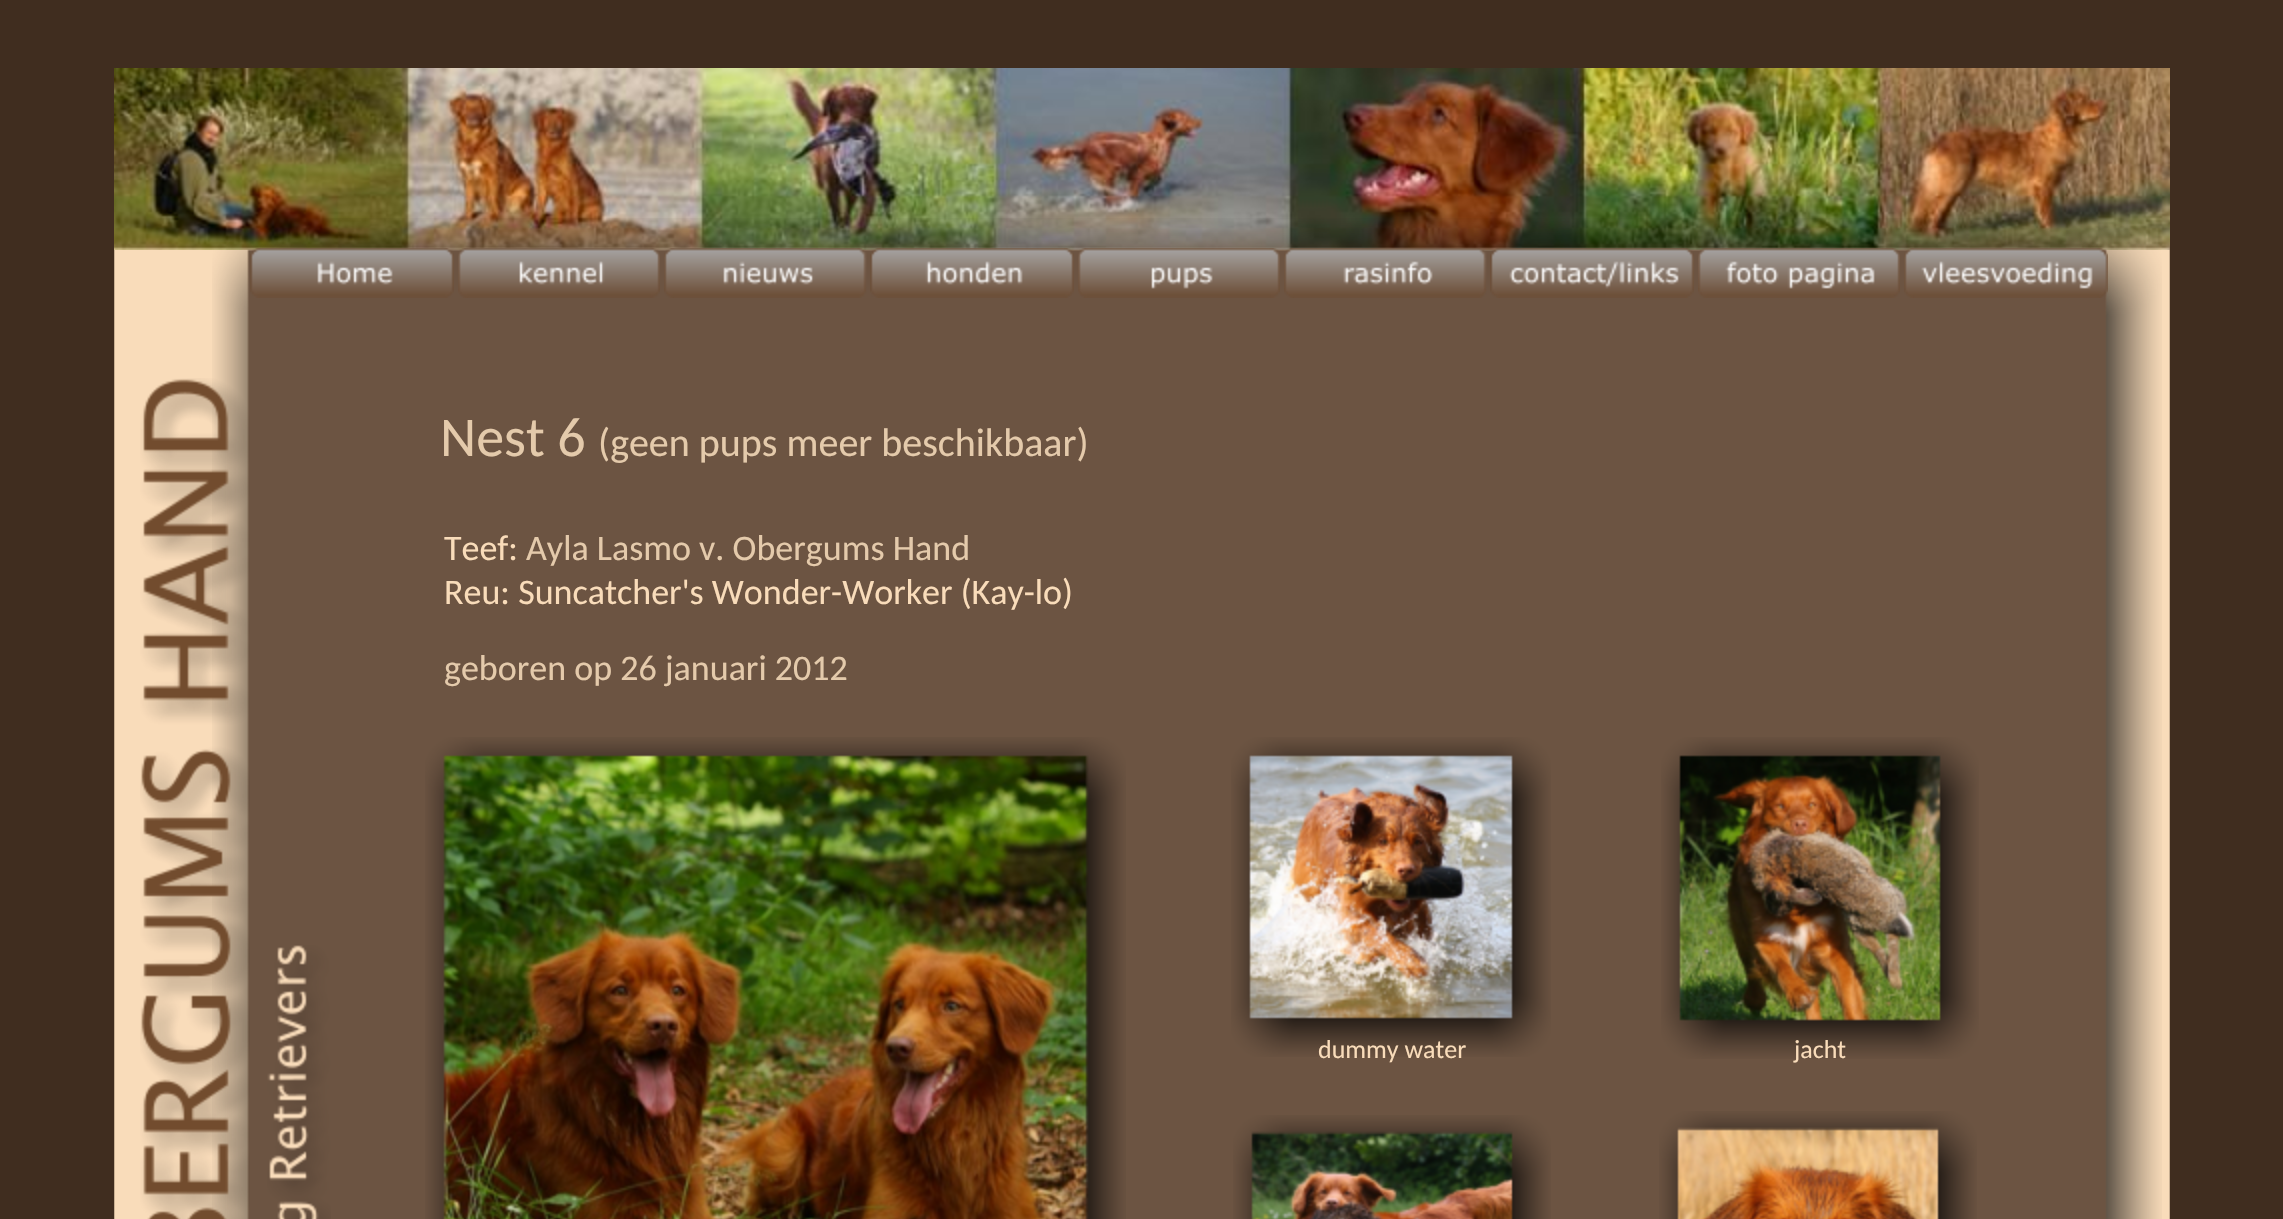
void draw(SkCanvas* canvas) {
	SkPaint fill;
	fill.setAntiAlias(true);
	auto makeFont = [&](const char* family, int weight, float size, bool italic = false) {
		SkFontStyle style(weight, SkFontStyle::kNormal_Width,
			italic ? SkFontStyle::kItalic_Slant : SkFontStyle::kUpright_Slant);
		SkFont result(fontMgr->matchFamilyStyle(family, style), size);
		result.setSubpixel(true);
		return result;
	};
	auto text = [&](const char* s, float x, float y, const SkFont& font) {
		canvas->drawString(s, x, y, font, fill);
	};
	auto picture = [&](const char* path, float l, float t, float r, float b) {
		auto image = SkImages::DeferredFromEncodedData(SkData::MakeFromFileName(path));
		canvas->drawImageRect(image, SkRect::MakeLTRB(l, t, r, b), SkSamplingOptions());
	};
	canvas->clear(0xFF402D1F);
	picture("image0.png", 114, 68, 2170, 250);
	picture("image11.png", 114, 250, 2170, 1219);
	picture("image1.png", 212, 218, 2162, 1219);
	picture("image2.png", 250, 248, 454, 298);
	picture("image3.png", 458, 248, 660, 298);
	picture("image4.png", 664, 248, 867, 298);
	picture("image5.png", 870, 248, 1074, 298);
	picture("image6.png", 1078, 248, 1280, 298);
	picture("image7.png", 1284, 248, 1487, 298);
	picture("image8.png", 1490, 248, 1694, 298);
	picture("image9.png", 1698, 248, 1900, 298);
	picture("image10.png", 1904, 248, 2108, 298);
	picture("image12.png", 140, 378, 250, 1219);
	picture("image13.png", 267, 945, 331, 1219);
	picture("image14.png", 425, 737, 1126, 1219);
	picture("image15.png", 1231, 737, 1551, 1057);
	picture("image16.png", 1661, 737, 1979, 1059);
	picture("image17.png", 1233, 1115, 1551, 1219);
	picture("image18.png", 1659, 1111, 1977, 1219);
	auto font1 = makeFont("Carlito", 400, 56);
	fill.setColor(0xFFE4CAAB);
	text("Nest 6", 440, 456, font1);
	auto font2 = makeFont("Carlito", 400, 40);
	text("(geen pups meer beschikbaar)", 598, 456, font2);
	auto font3 = makeFont("Carlito", 400, 36);
	fill.setColor(0xFFF9DCBA);
	text("Teef:", 444, 560, font3);
	fill.setColor(0xFFE4CAAB);
	text("Ayla Lasmo v. Obergums Hand", 526, 560, font3);
	fill.setColor(0xFFF9DCBA);
	text("Reu: Suncatcher's Wonder-Worker (Kay-lo)", 444, 604, font3);
	fill.setColor(0xFFE4CAAB);
	text("geboren op 26 januari 2012", 444, 680, font3);
	auto font4 = makeFont("Carlito", 400, 26);
	fill.setColor(0xFFF9DCBA);
	text("dummy water", 1318, 1058, font4);
	text("jacht", 1794, 1058, font4);
}
